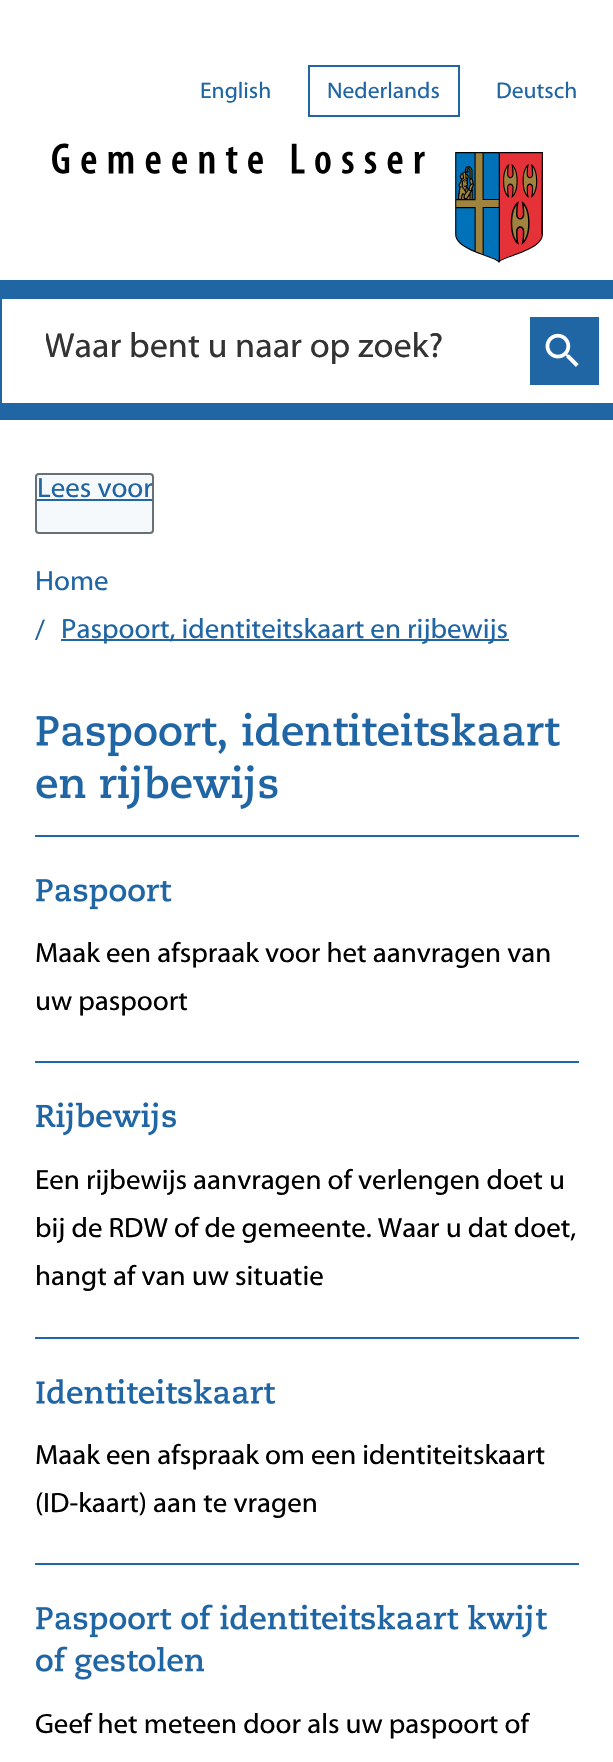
void draw(SkCanvas* canvas) {
	SkPaint fill;
	fill.setAntiAlias(true);
	auto makeFont = [&](const char* family, int weight, float size, bool italic = false) {
		SkFontStyle style(weight, SkFontStyle::kNormal_Width,
			italic ? SkFontStyle::kItalic_Slant : SkFontStyle::kUpright_Slant);
		SkFont result(fontMgr->matchFamilyStyle(family, style), size);
		result.setSubpixel(true);
		return result;
	};
	auto text = [&](const char* s, float x, float y, const SkFont& font) {
		canvas->drawString(s, x, y, font, fill);
	};
	auto box = [&](float l, float t, float r, float b) {
		canvas->drawRect(SkRect::MakeLTRB(l, t, r, b), fill);
	};
	auto picture = [&](const char* path, float l, float t, float r, float b) {
		auto image = SkImages::DeferredFromEncodedData(SkData::MakeFromFileName(path));
		canvas->drawImageRect(image, SkRect::MakeLTRB(l, t, r, b), SkSamplingOptions());
	};
	canvas->clear(0xFFFFFFFF);
	fill.setStyle(SkPaint::kStroke_Style);
	fill.setStrokeWidth(2);
	fill.setColor(0xFF2065A4);
	canvas->drawRect(SkRect::MakeLTRB(309, 66, 459, 116), fill);
	picture("image0.png", 52, 143, 543, 263);
	fill.setStyle(SkPaint::kFill_Style);
	box(0, 280, 613, 420);
	fill.setColor(0xFFFFFFFF);
	box(2, 299, 613, 403);
	fill.setColor(0xFF2065A4);
	box(530, 317, 599, 385);
	picture("image1.png", 545, 333, 579, 367);
	fill.setColor(0xFFF6F9FC);
	canvas->drawRoundRect(SkRect::MakeLTRB(36, 474, 153, 533), 3, 3, fill);
	fill.setStyle(SkPaint::kStroke_Style);
	fill.setColor(0xFF677077);
	canvas->drawRoundRect(SkRect::MakeLTRB(36, 474, 153, 533), 3, 3, fill);
	fill.setStyle(SkPaint::kFill_Style);
	fill.setColor(0xFF2065A4);
	box(37, 499, 152, 501);
	box(61, 639, 509, 641);
	picture("image2.png", 36, 712, 560, 757);
	picture("image3.png", 36, 765, 278, 809);
	box(35, 835, 579, 837);
	box(35, 1061, 579, 1063);
	picture("image4.png", 36, 879, 172, 910);
	box(35, 1337, 579, 1339);
	picture("image5.png", 36, 1102, 176, 1136);
	box(35, 1563, 579, 1565);
	picture("image6.png", 36, 1378, 276, 1404);
	picture("image7.png", 36, 1604, 547, 1638);
	picture("image8.png", 36, 1646, 204, 1680);
	auto font1 = makeFont("Myriad", 400, 22.75f);
	text("English", 200, 98, font1);
	text("Nederlands", 327, 98, font1);
	text("Deutsch", 496, 98, font1);
	canvas->save();
	canvas->clipRect(SkRect::MakeLTRB(46, 326, 499, 366));
	auto font2 = makeFont("Myriad", 400, 35);
	fill.setColor(0xFF333333);
	text("Waar bent u naar op zoek?", 44, 357, font2);
	canvas->restore();
	auto font3 = makeFont("Myriad", 400, 28);
	fill.setColor(0xFF2065A4);
	text("Lees voor", 37, 497, font3);
	text("Home", 35, 590, font3);
	text("/", 35, 639, font3);
	text("Paspoort, identiteitskaart en rijbewijs", 61, 638, font3);
	fill.setColor(0xFF000000);
	text("Maak een afspraak voor het aanvragen van", 35, 962, font3);
	text("uw paspoort", 35, 1010, font3);
	text("Een rijbewijs aanvragen of verlengen doet u", 35, 1189, font3);
	text("bij de RDW of de gemeente. Waar u dat doet,", 35, 1237, font3);
	text("hangt af van uw situatie", 35, 1285, font3);
	text("Maak een afspraak om een identiteitskaart", 35, 1464, font3);
	text("(ID-kaart) aan te vragen", 35, 1512, font3);
	text("Geef het meteen door als uw paspoort of", 35, 1733, font3);
}
